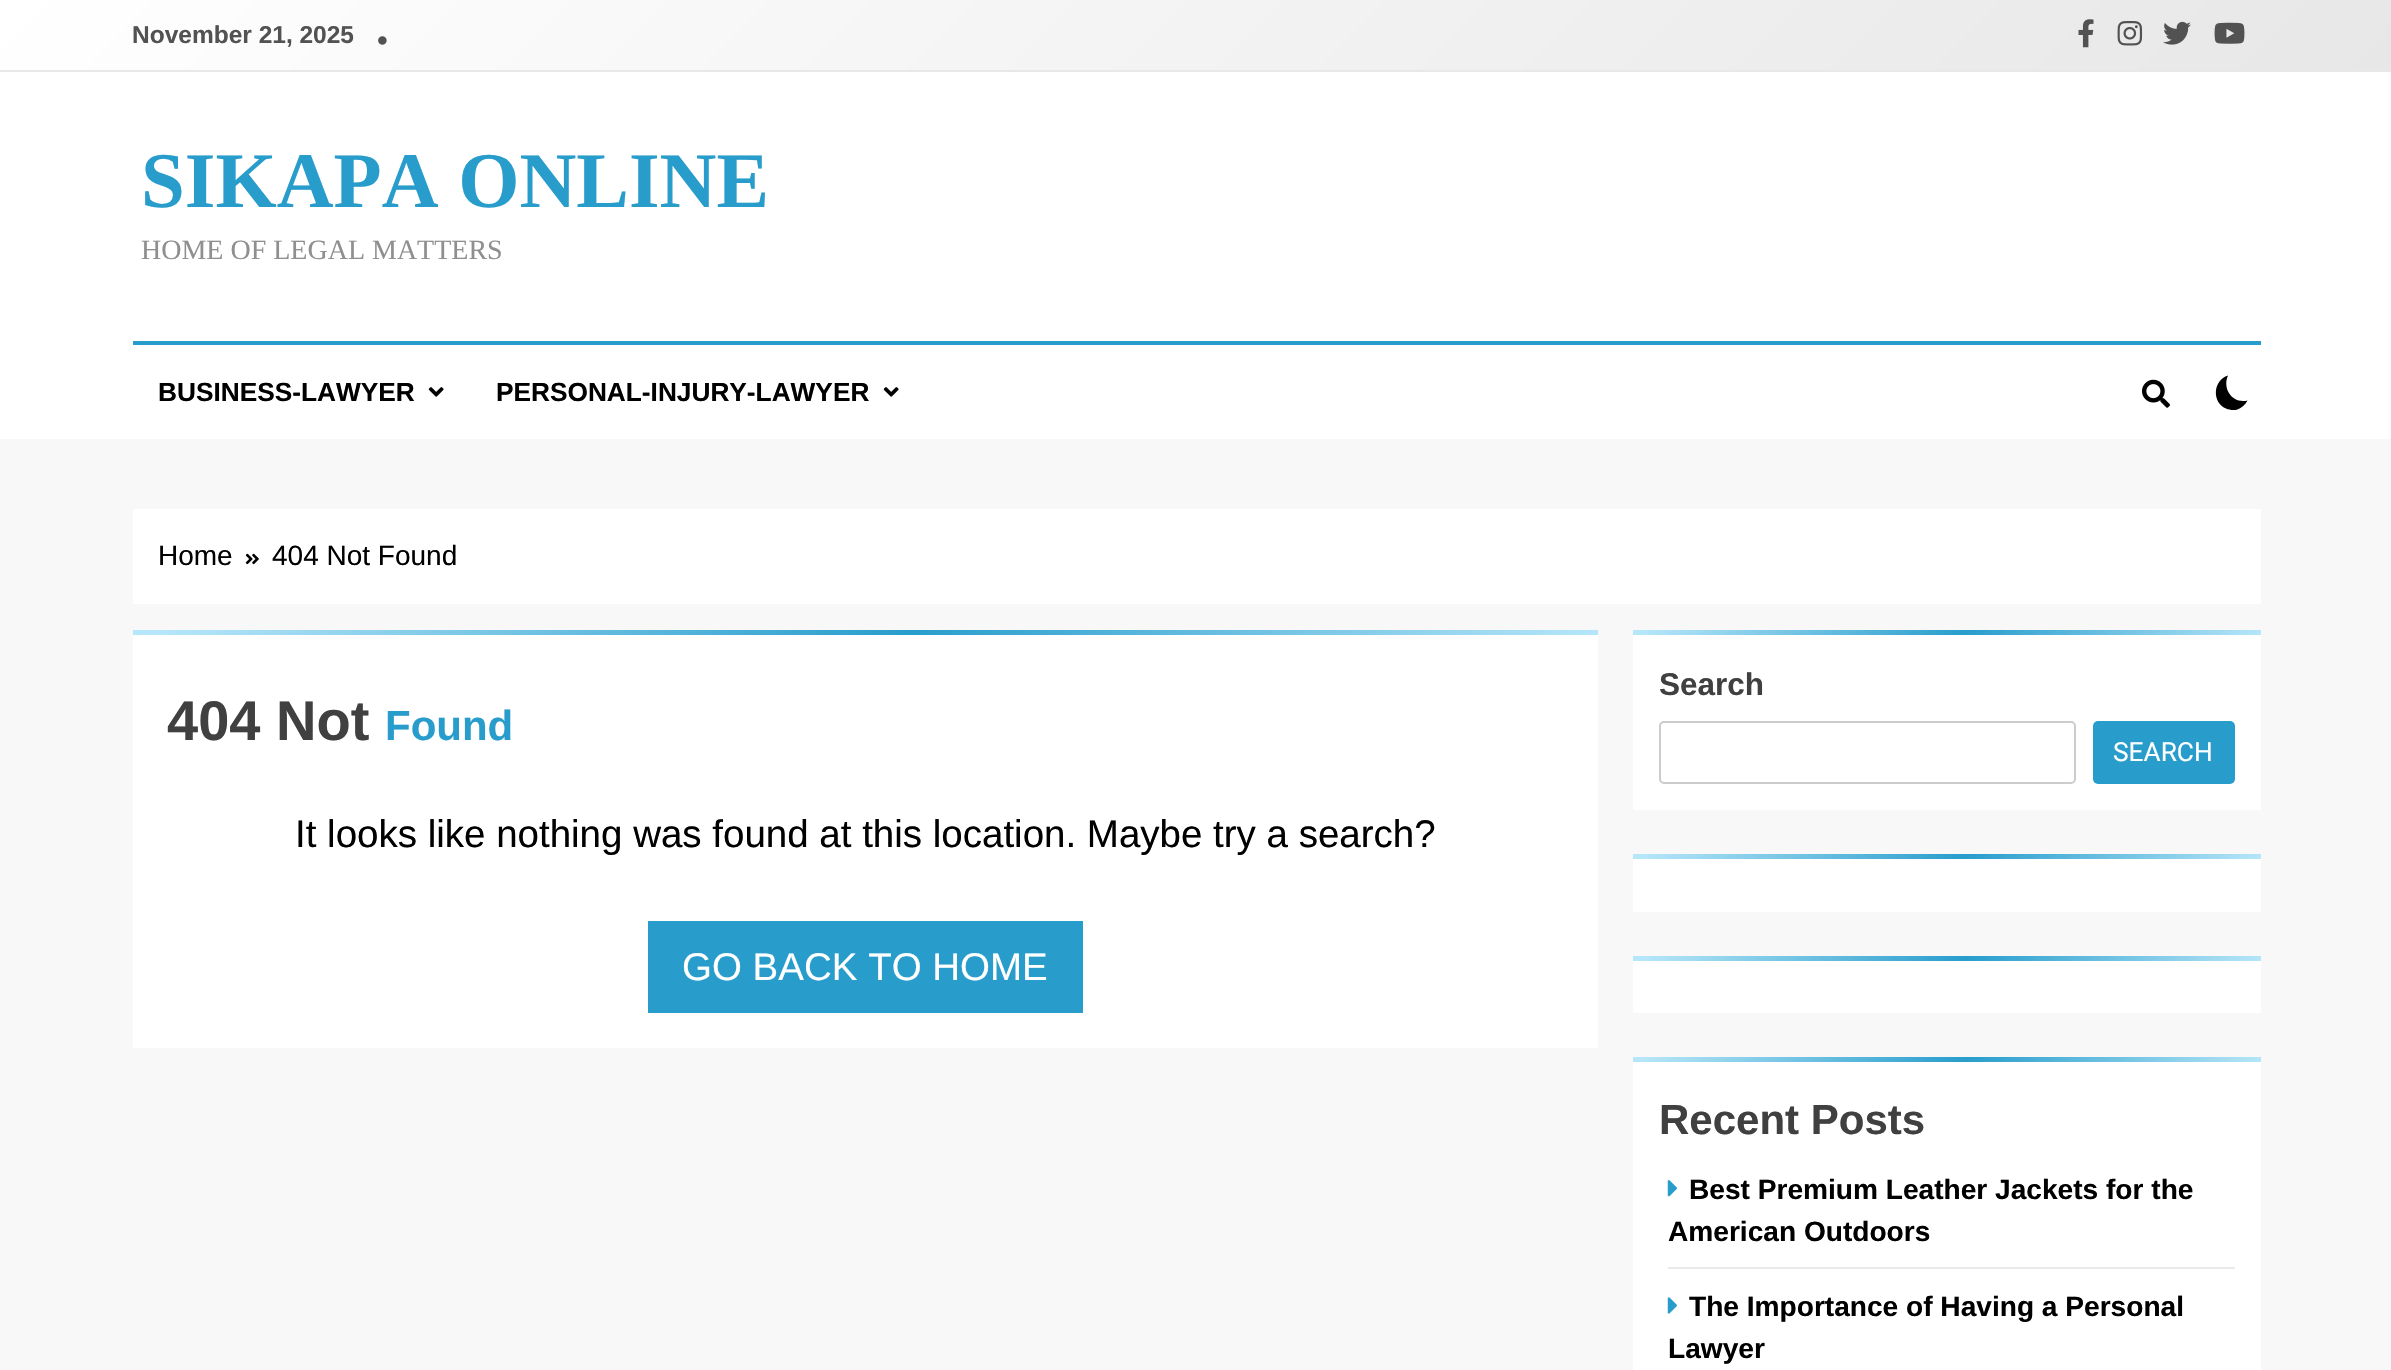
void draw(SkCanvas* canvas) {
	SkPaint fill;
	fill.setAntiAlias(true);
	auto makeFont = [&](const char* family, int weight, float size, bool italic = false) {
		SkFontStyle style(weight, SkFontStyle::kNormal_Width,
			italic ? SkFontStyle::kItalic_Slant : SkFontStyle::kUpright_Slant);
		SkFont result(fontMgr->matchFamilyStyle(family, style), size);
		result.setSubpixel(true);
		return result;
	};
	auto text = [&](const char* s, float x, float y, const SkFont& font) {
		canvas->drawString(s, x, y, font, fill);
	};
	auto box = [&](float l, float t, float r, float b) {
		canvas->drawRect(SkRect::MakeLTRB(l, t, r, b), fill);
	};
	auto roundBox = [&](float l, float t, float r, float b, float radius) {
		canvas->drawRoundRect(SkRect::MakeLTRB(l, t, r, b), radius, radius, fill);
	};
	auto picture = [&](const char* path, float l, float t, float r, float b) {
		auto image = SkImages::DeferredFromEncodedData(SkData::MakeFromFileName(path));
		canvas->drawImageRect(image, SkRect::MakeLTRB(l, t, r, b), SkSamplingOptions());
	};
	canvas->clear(0xFFF8F8F8);
	{
		const SkColor colors[] = {0xFFFFFFFF, 0xFFE7E7E7};
		const float stops[] = {0, 1};
		const SkPoint ends[] = {{581, -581}, {1812, 651}};
		fill.setShader(SkGradientShader::MakeLinear(ends, colors, stops, 2, SkTileMode::kClamp));
		fill.setAlpha(255);
	}
	box(0, 0, 2391, 70);
	fill.setShader(nullptr);
	fill.setColor(0xFFE8E8E8);
	box(0, 70, 2391, 72);
	picture("image0.png", 378, 36, 387, 45);
	picture("image1.png", 2078, 19, 2094, 48);
	picture("image2.png", 2117, 21, 2143, 46);
	picture("image3.png", 2163, 21, 2191, 45);
	picture("image4.png", 2214, 22, 2245, 44);
	fill.setColor(0xFFFFFFFF);
	box(0, 72, 2391, 439);
	fill.setColor(0xFF289DCC);
	box(133, 341, 2261, 345);
	picture("image5.png", 428, 387, 444, 397);
	picture("image5.png", 883, 387, 899, 397);
	picture("image6.png", 2142, 379, 2170, 408);
	fill.setColor(0xFF000000);
	canvas->drawPath(SkPathBuilder().moveTo(2247.5f, 400.5f).cubicTo(2232.5f, 404, 2222, 389, 2228, 375.5f).cubicTo(2213, 380, 2211.5f, 402.5f, 2226, 408.5f).cubicTo(2229.5f, 410, 2233.5f, 410.5f, 2237.5f, 409.5f).cubicTo(2241.5f, 408, 2245.5f, 404.5f, 2247.5f, 400.5f).close().detach(), fill);
	fill.setColor(0xFFFFFFFF);
	box(133, 509, 2261, 604);
	picture("image7.png", 245, 553, 259, 565);
	box(133, 635, 1598, 1048);
	{
		const SkColor colors[] = {0xFFB6E6F9, 0xFF289DCC, 0xFFB6E6F9};
		const float stops[] = {0.02f, 0.53f, 1};
		const SkPoint ends[] = {{498, 265}, {1233, 1000}};
		fill.setShader(SkGradientShader::MakeLinear(ends, colors, stops, 3, SkTileMode::kClamp));
		fill.setAlpha(255);
	}
	box(133, 630, 1598, 635);
	fill.setShader(nullptr);
	fill.setColor(0xFF289DCC);
	box(648, 921, 1083, 1013);
	fill.setColor(0xFFFFFFFF);
	box(1633, 635, 2261, 810);
	{
		const SkColor colors[] = {0xFFB6E6F9, 0xFF289DCC, 0xFFB6E6F9};
		const float stops[] = {0.02f, 0.53f, 1};
		const SkPoint ends[] = {{1789, 474}, {2105, 791}};
		fill.setShader(SkGradientShader::MakeLinear(ends, colors, stops, 3, SkTileMode::kClamp));
		fill.setAlpha(255);
	}
	box(1633, 630, 2261, 635);
	fill.setStyle(SkPaint::kStroke_Style);
	fill.setStrokeWidth(2);
	fill.setShader(nullptr);
	fill.setColor(0xFFCCCCCC);
	canvas->drawRoundRect(SkRect::MakeLTRB(1660, 722, 2075, 783), 4, 4, fill);
	fill.setStyle(SkPaint::kFill_Style);
	fill.setColor(0xFF289DCC);
	roundBox(2093, 721, 2235, 784, 5);
	fill.setColor(0xFFFFFFFF);
	box(1633, 859, 2261, 912);
	{
		const SkColor colors[] = {0xFFB6E6F9, 0xFF289DCC, 0xFFB6E6F9};
		const float stops[] = {0.02f, 0.53f, 1};
		const SkPoint ends[] = {{1789, 698}, {2105, 1015}};
		fill.setShader(SkGradientShader::MakeLinear(ends, colors, stops, 3, SkTileMode::kClamp));
		fill.setAlpha(255);
	}
	box(1633, 854, 2261, 859);
	fill.setShader(nullptr);
	fill.setColor(0xFFFFFFFF);
	box(1633, 961, 2261, 1013);
	{
		const SkColor colors[] = {0xFFB6E6F9, 0xFF289DCC, 0xFFB6E6F9};
		const float stops[] = {0.02f, 0.53f, 1};
		const SkPoint ends[] = {{1789, 800}, {2105, 1117}};
		fill.setShader(SkGradientShader::MakeLinear(ends, colors, stops, 3, SkTileMode::kClamp));
		fill.setAlpha(255);
	}
	box(1633, 956, 2261, 961);
	fill.setShader(nullptr);
	fill.setColor(0xFFFFFFFF);
	box(1633, 1062, 2261, 1370);
	{
		const SkColor colors[] = {0xFFB6E6F9, 0xFF289DCC, 0xFFB6E6F9};
		const float stops[] = {0.02f, 0.53f, 1};
		const SkPoint ends[] = {{1789, 901}, {2105, 1218}};
		fill.setShader(SkGradientShader::MakeLinear(ends, colors, stops, 3, SkTileMode::kClamp));
		fill.setAlpha(255);
	}
	box(1633, 1057, 2261, 1062);
	fill.setShader(nullptr);
	fill.setColor(0xFFEAEAEA);
	box(1668, 1267, 2235, 1269);
	picture("image8.png", 1667, 1180, 1677, 1197);
	picture("image9.png", 1667, 1297, 1677, 1314);
	auto font1 = makeFont("Liberation Sans", 700, 24.5f);
	fill.setColor(0xFF525252);
	text("November 21, 2025", 132, 43, font1);
	auto font2 = makeFont("Liberation Serif", 700, 78.75f);
	fill.setColor(0xFF289DCC);
	text("SIKAPA ONLINE", 141, 207, font2);
	auto font3 = makeFont("Liberation Serif", 400, 28);
	fill.setColor(0xFF8F8F8F);
	text("HOME OF LEGAL MATTERS", 141, 259, font3);
	auto font4 = makeFont("Liberation Sans", 700, 26.25f);
	fill.setColor(0xFF000000);
	text("BUSINESS-LAWYER", 158, 401, font4);
	text("PERSONAL-INJURY-LAWYER", 496, 401, font4);
	auto font5 = makeFont("Liberation Sans", 400, 28);
	text("Home", 158, 565, font5);
	text("404 Not Found", 272, 565, font5);
	auto font6 = makeFont("Liberation Sans", 700, 56);
	fill.setColor(0xFF404040);
	text("404 Not", 167, 740, font6);
	auto font7 = makeFont("Liberation Sans", 700, 42);
	fill.setColor(0xFF289DCC);
	text("Found", 385, 740, font7);
	auto font8 = makeFont("Liberation Sans", 400, 38.5f);
	fill.setColor(0xFF000000);
	text("It looks like nothing was found at this location. Maybe try a search?", 295, 847, font8);
	fill.setColor(0xFFFFFFFF);
	text("GO BACK TO HOME", 682, 980, font8);
	auto font9 = makeFont("Liberation Sans", 700, 31.5f);
	fill.setColor(0xFF404040);
	text("Search", 1659, 695, font9);
	auto font10 = makeFont("Roboto", 400, 26.25f);
	fill.setColor(0xFFFFFFFF);
	text("SEARCH", 2113, 761, font10);
	fill.setColor(0xFF404040);
	text("Recent Posts", 1659, 1134, font7);
	auto font11 = makeFont("Liberation Sans", 700, 28.1f);
	fill.setColor(0xFF000000);
	text("Best Premium Leather Jackets for the", 1689, 1199, font11);
	text("American Outdoors", 1668, 1241, font11);
	text("The Importance of Having a Personal", 1689, 1316, font11);
	text("Lawyer", 1668, 1358, font11);
}
